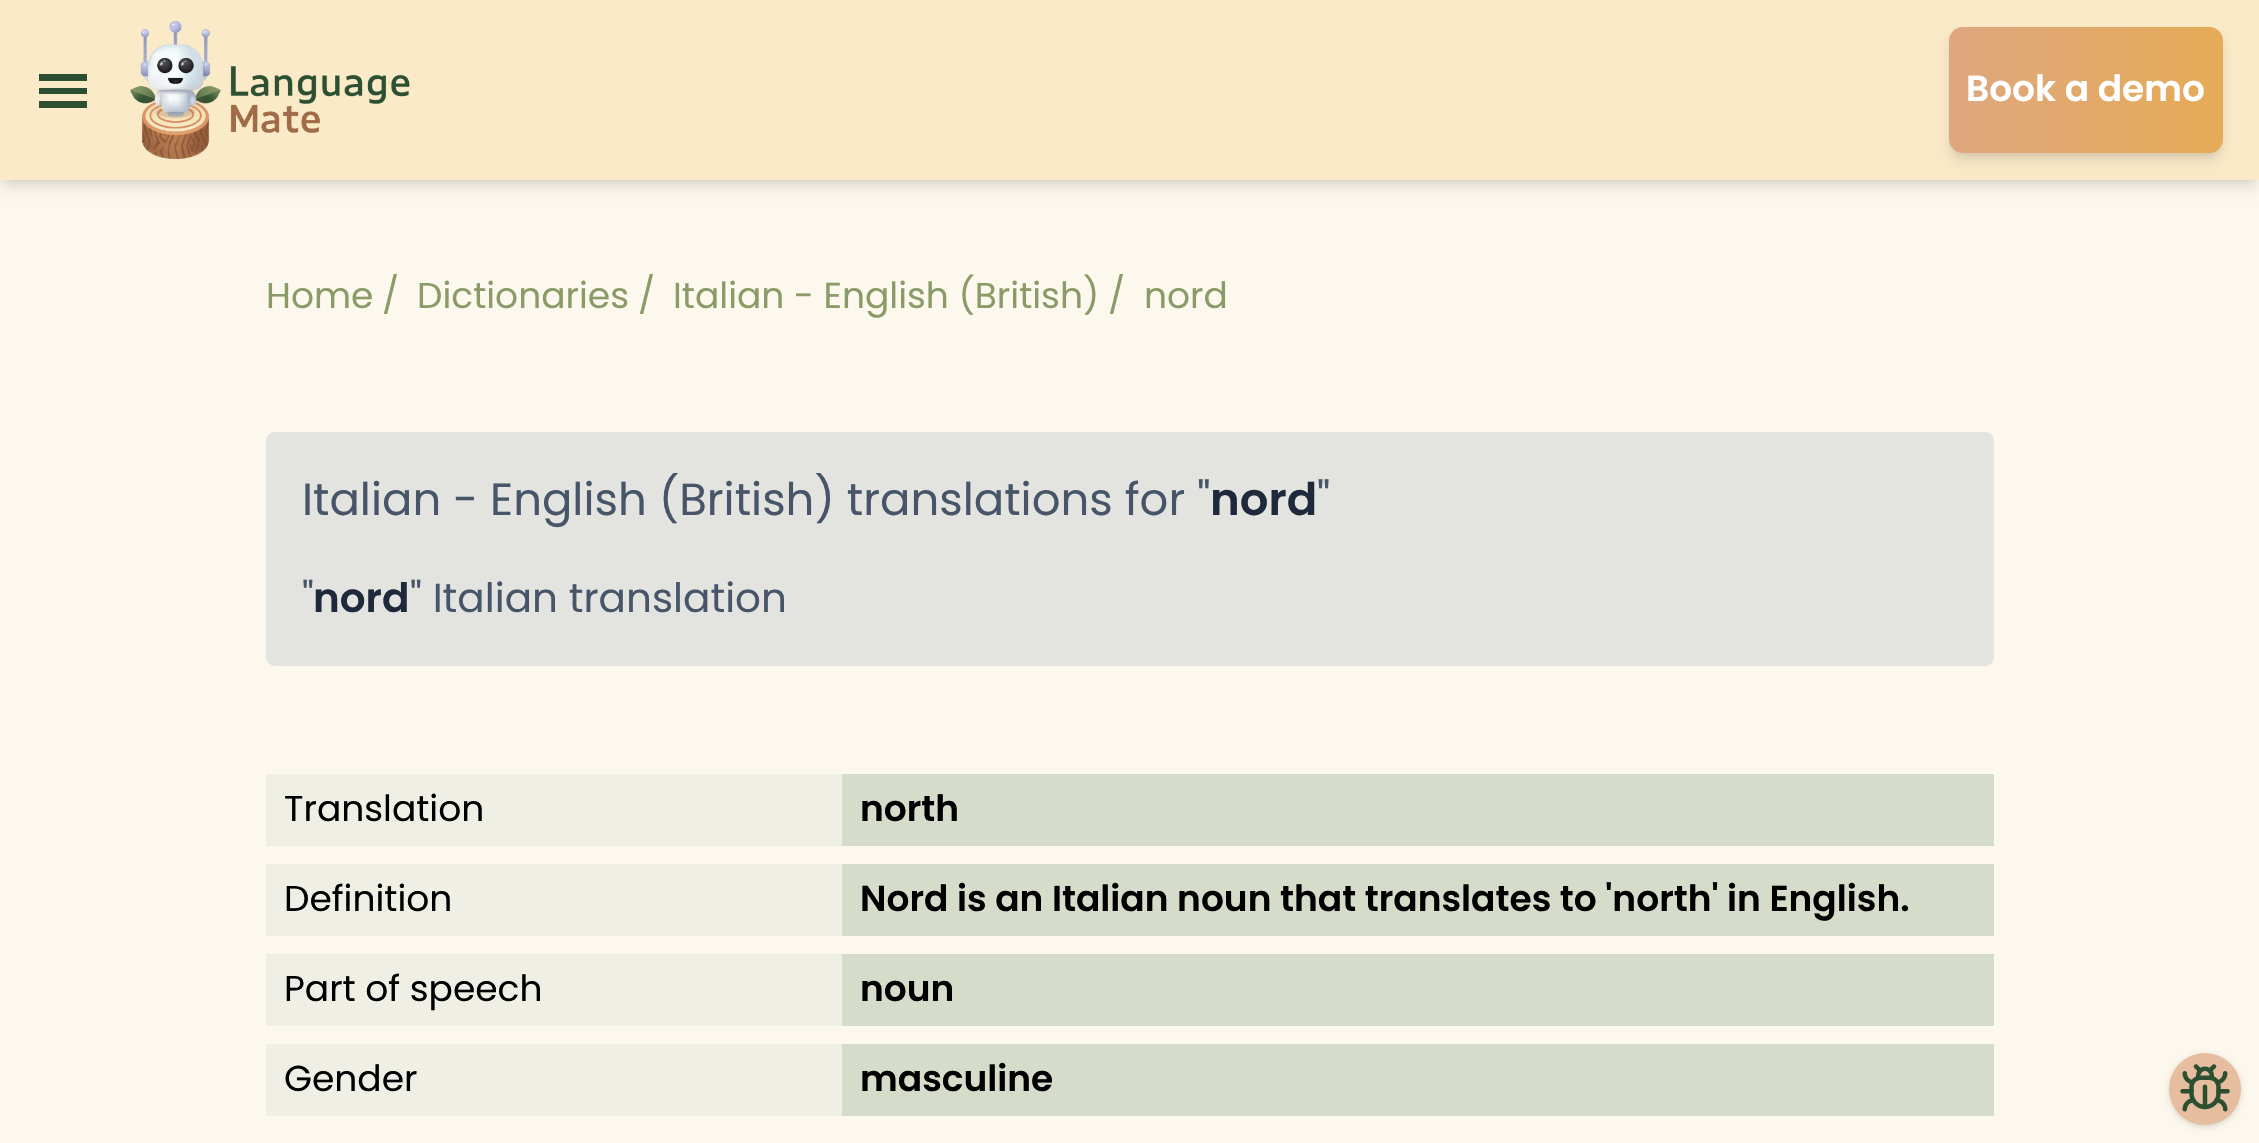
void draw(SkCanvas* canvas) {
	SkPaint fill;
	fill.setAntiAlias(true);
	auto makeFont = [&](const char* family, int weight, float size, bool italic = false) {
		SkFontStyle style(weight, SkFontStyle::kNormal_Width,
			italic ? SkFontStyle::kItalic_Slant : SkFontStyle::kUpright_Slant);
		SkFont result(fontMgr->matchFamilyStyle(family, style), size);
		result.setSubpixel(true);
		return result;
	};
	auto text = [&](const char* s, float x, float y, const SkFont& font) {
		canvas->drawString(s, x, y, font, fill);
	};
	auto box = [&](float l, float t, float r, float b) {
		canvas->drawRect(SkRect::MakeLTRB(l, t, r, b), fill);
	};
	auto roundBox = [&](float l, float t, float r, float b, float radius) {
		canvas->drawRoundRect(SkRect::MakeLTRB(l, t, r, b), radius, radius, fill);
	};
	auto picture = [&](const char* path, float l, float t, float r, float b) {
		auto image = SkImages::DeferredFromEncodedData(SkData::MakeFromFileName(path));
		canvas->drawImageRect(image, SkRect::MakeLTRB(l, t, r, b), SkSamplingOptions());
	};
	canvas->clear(0xFFFDF8ED);
	fill.setColor(0x1A000000);
	fill.setMaskFilter(SkMaskFilter::MakeBlur(kNormal_SkBlurStyle, 4.5f));
	canvas->drawRect(SkRect::MakeLTRB(5, 9, 2255, 180), fill);
	fill.setMaskFilter(nullptr);
	fill.setMaskFilter(SkMaskFilter::MakeBlur(kNormal_SkBlurStyle, 7));
	canvas->drawRect(SkRect::MakeLTRB(2, 11, 2257, 187), fill);
	fill.setMaskFilter(nullptr);
	fill.setColor(0xFFFAEAC8);
	box(0, 0, 2259, 180);
	fill.setColor(0xFF2B4F30);
	canvas->drawPath(SkPathBuilder().moveTo(39, 74).lineTo(39, 81).lineTo(87, 81).lineTo(87, 74).close().moveTo(39, 88).lineTo(39, 94).lineTo(87, 94).lineTo(87, 88).close().moveTo(39, 101).lineTo(39, 108).lineTo(87, 108).lineTo(87, 101).close().detach(), fill);
	picture("image0.png", 130, 21, 410, 159);
	fill.setColor(0x1A000000);
	fill.setMaskFilter(SkMaskFilter::MakeBlur(kNormal_SkBlurStyle, 4.5f));
	canvas->drawRoundRect(SkRect::MakeLTRB(1953, 36, 2219, 153), 9, 9, fill);
	fill.setMaskFilter(nullptr);
	fill.setMaskFilter(SkMaskFilter::MakeBlur(kNormal_SkBlurStyle, 7));
	canvas->drawRoundRect(SkRect::MakeLTRB(1951, 38, 2221, 160), 11, 11, fill);
	fill.setMaskFilter(nullptr);
	{
		const SkColor colors[] = {0xFFDEA77F, 0xFFECAF2E, 0xFFC97134};
		const float stops[] = {0, 0.5f, 1};
		const SkPoint ends[] = {{1949, 90}, {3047, 90}};
		fill.setShader(SkGradientShader::MakeLinear(ends, colors, stops, 3, SkTileMode::kClamp));
		fill.setAlpha(255);
	}
	roundBox(1949, 27, 2223, 153, 14);
	fill.setShader(nullptr);
	fill.setColor(0xFFE3E3E0);
	roundBox(266, 432, 1994, 666, 9);
	fill.setColor(0xFFEFEFE6);
	box(266, 774, 842, 846);
	fill.setColor(0xFFD6DCCA);
	box(842, 774, 1994, 846);
	fill.setColor(0xFFEFEFE6);
	box(266, 864, 842, 936);
	fill.setColor(0xFFD6DCCA);
	box(842, 864, 1994, 936);
	fill.setColor(0xFFEFEFE6);
	box(266, 954, 842, 1026);
	fill.setColor(0xFFD6DCCA);
	box(842, 954, 1994, 1026);
	fill.setColor(0xFFEFEFE6);
	box(266, 1044, 842, 1116);
	fill.setColor(0xFFD6DCCA);
	box(842, 1044, 1994, 1116);
	fill.setColor(0x1A000000);
	fill.setMaskFilter(SkMaskFilter::MakeBlur(kNormal_SkBlurStyle, 2));
	canvas->drawRoundRect(SkRect::MakeLTRB(2171, 1058, 2239, 1125), 33.5f, 33.5f, fill);
	fill.setMaskFilter(nullptr);
	fill.setMaskFilter(SkMaskFilter::MakeBlur(kNormal_SkBlurStyle, 3.5f));
	canvas->drawRoundRect(SkRect::MakeLTRB(2169, 1055, 2241, 1127), 36, 36, fill);
	fill.setMaskFilter(nullptr);
	fill.setColor(0xFFE7BDA0);
	canvas->drawCircle(2205, 1089, 36, fill);
	picture("image1.png", 2180, 1064, 2230, 1112);
	auto font1 = makeFont("Poppins", 600, 36);
	fill.setColor(0xFFFFFFFF);
	text("Book a demo", 1966, 101, font1);
	auto font2 = makeFont("Poppins", 400, 36);
	fill.setColor(0xFF8A9B68);
	text("Home", 266, 308, font2);
	text("/", 382, 308, font2);
	text("Dictionaries", 417, 308, font2);
	text("/", 638, 308, font2);
	text("Italian - English (British)", 673, 308, font2);
	text("/", 1108, 308, font2);
	text("nord", 1144, 308, font2);
	auto font3 = makeFont("Poppins", 400, 45);
	fill.setColor(0xFF475569);
	text("Italian - English (British) translations for \"", 302, 515, font3);
	auto font4 = makeFont("Poppins", 600, 45);
	fill.setColor(0xFF1E293B);
	text("nord", 1210, 515, font4);
	fill.setColor(0xFF475569);
	text("\"", 1317, 515, font3);
	auto font5 = makeFont("Poppins", 400, 40.5f);
	text("\"", 302, 612, font5);
	auto font6 = makeFont("Poppins", 600, 40.5f);
	fill.setColor(0xFF1E293B);
	text("nord", 313, 612, font6);
	fill.setColor(0xFF475569);
	text("\" Italian translation", 410, 612, font5);
	fill.setColor(0xFF000000);
	text("Translation", 284, 821, font2);
	text("north", 860, 821, font1);
	text("Definition", 284, 911, font2);
	text("Nord is an Italian noun that translates to 'north' in English.", 860, 911, font1);
	text("Part of speech", 284, 1001, font2);
	text("noun", 860, 1001, font1);
	text("Gender", 284, 1091, font2);
	text("masculine", 860, 1091, font1);
}
